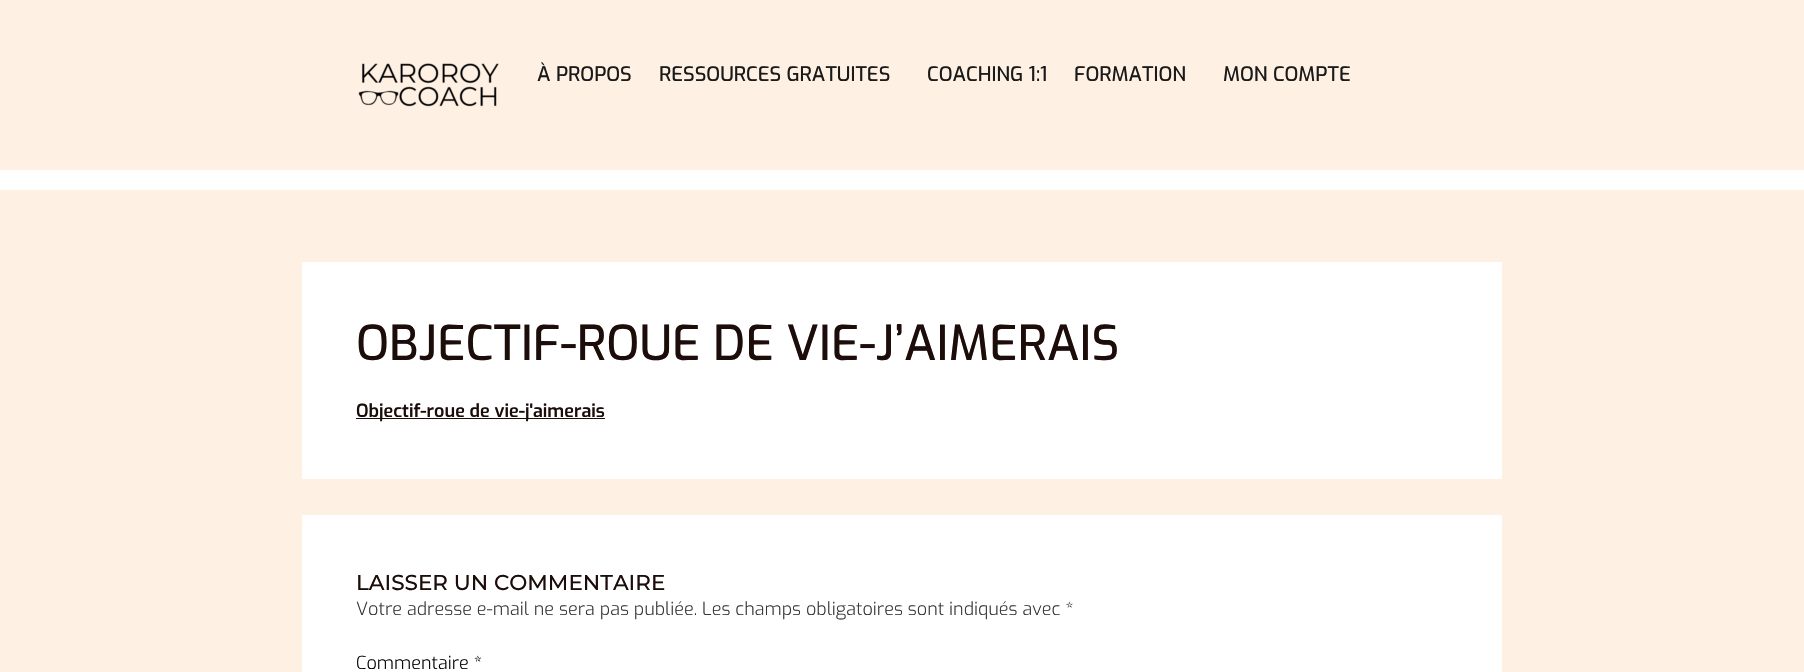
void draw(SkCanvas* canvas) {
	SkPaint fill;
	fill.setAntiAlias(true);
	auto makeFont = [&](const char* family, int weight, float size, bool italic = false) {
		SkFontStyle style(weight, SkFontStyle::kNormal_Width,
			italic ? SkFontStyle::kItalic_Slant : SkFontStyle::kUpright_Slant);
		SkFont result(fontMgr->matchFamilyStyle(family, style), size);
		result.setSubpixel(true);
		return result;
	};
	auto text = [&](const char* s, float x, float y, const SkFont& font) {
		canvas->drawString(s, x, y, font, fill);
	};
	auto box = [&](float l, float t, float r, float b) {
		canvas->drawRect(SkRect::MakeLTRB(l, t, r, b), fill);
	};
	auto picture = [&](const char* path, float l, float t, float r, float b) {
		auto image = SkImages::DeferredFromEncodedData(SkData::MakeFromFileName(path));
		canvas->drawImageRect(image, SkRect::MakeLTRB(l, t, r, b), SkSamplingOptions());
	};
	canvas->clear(0xFFFEF1E4);
	picture("image0.png", 358, 63, 499, 107);
	fill.setColor(0xFFFFFFFF);
	box(0, 170, 1804, 190);
	box(302, 262, 1502, 479);
	fill.setColor(0xFF1C0D0A);
	box(356, 418, 605, 419);
	fill.setColor(0xFFFFFFFF);
	box(302, 515, 1502, 672);
	auto font1 = makeFont("Exo", 500, 20);
	fill.setColor(0xFF1A1A1A);
	text("À PROPOS", 537, 81, font1);
	text("RESSOURCES GRATUITES", 659, 81, font1);
	text("COACHING 1:1", 927, 81, font1);
	text("FORMATION", 1074, 81, font1);
	text("MON COMPTE", 1223, 81, font1);
	auto font2 = makeFont("Exo", 500, 48);
	fill.setColor(0xFF1C0D0A);
	text("OBJECTIF-ROUE DE VIE-J’AIMERAIS", 356, 360, font2);
	auto font3 = makeFont("Exo", 600, 18);
	text("Objectif-roue de vie-j'aimerais", 356, 417, font3);
	auto font4 = makeFont("Montserrat", 500, 21.5f);
	text("LAISSER UN COMMENTAIRE", 356, 590, font4);
	auto font5 = makeFont("Exo", 300, 18);
	fill.setColor(0xFF353535);
	text("Votre adresse e-mail ne sera pas publiée. Les champs obligatoires sont indiqués avec *", 356, 615, font5);
	fill.setColor(0xFF000000);
	text("Commentaire *", 356, 669, font5);
}
